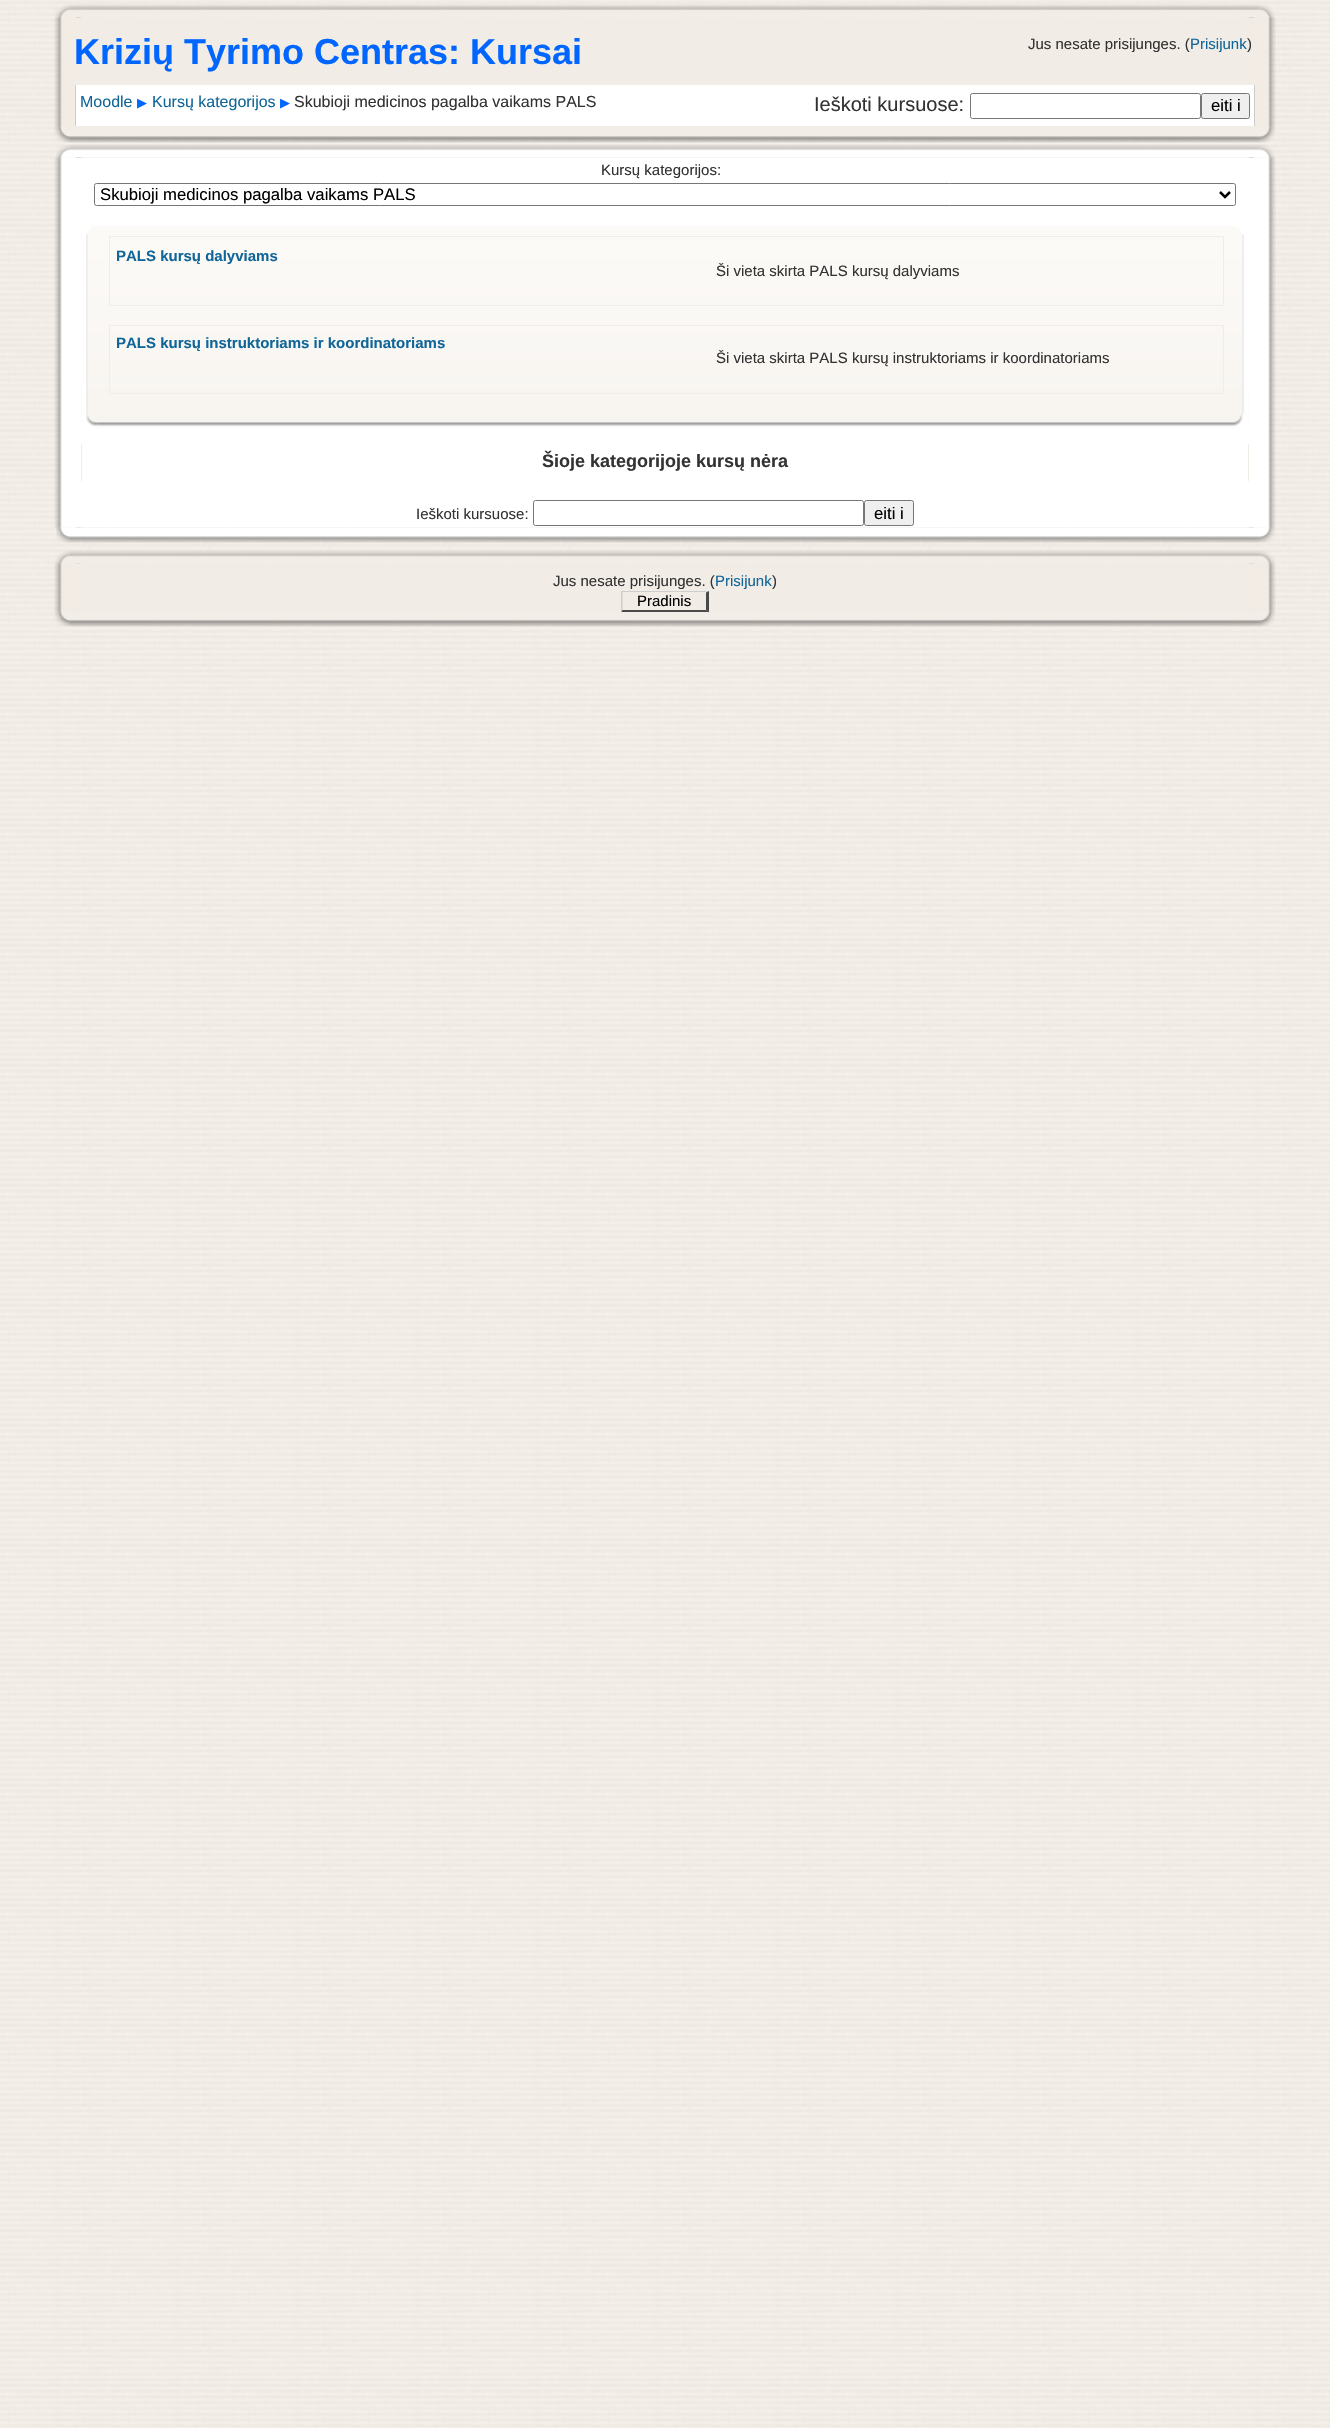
void draw(SkCanvas* canvas) {
	SkPaint fill;
	fill.setAntiAlias(true);
	auto makeFont = [&](const char* family, int weight, float size, bool italic = false) {
		SkFontStyle style(weight, SkFontStyle::kNormal_Width,
			italic ? SkFontStyle::kItalic_Slant : SkFontStyle::kUpright_Slant);
		SkFont result(fontMgr->matchFamilyStyle(family, style), size);
		result.setSubpixel(true);
		return result;
	};
	auto text = [&](const char* s, float x, float y, const SkFont& font) {
		canvas->drawString(s, x, y, font, fill);
	};
	auto box = [&](float l, float t, float r, float b) {
		canvas->drawRect(SkRect::MakeLTRB(l, t, r, b), fill);
	};
	auto picture = [&](const char* path, float l, float t, float r, float b) {
		auto image = SkImages::DeferredFromEncodedData(SkData::MakeFromFileName(path));
		canvas->drawImageRect(image, SkRect::MakeLTRB(l, t, r, b), SkSamplingOptions());
	};
	canvas->clear(0xFFFFFFFF);
	picture("image0.png", 0, 0, 1330, 2428);
	picture("image1.png", 70, 4, 1275, 18);
	picture("image3.png", 54, 17, 83, 128);
	picture("image2.png", 55, 4, 70, 18);
	picture("image4.png", 1247, 17, 1276, 128);
	fill.setColor(0xFFF1ECE6);
	box(76, 18, 1254, 128);
	fill.setColor(0xFFFFFFFF);
	box(76, 85, 1254, 126);
	fill.setColor(0xFFCCCCCC);
	box(1254, 85, 1255, 126);
	box(75, 85, 76, 126);
	fill.setStyle(SkPaint::kStroke_Style);
	fill.setStrokeWidth(1);
	fill.setColor(0xFF767676);
	canvas->drawRoundRect(SkRect::MakeLTRB(970.5f, 93.5f, 1200.5f, 118.5f), 2, 2, fill);
	fill.setStyle(SkPaint::kFill_Style);
	fill.setColor(0xFFEFEFEF);
	canvas->drawRoundRect(SkRect::MakeLTRB(1201.5f, 93.5f, 1249.5f, 118.5f), 2, 2, fill);
	fill.setStyle(SkPaint::kStroke_Style);
	fill.setColor(0xFF767676);
	canvas->drawRoundRect(SkRect::MakeLTRB(1201.5f, 93.5f, 1249.5f, 118.5f), 2, 2, fill);
	picture("image5.png", 70, 127, 1276, 143);
	picture("image6.png", 54, 127, 70, 143);
	picture("image7.png", 70, 144, 1275, 158);
	picture("image9.png", 54, 157, 83, 528);
	picture("image8.png", 56, 144, 70, 158);
	picture("image10.png", 1247, 157, 1276, 528);
	fill.setStyle(SkPaint::kFill_Style);
	fill.setColor(0xFFFFFFFF);
	box(76, 159, 1254, 526);
	box(69, 158, 1261, 159);
	box(69, 526, 1261, 527);
	fill.setStyle(SkPaint::kStroke_Style);
	fill.setColor(0xFF767676);
	canvas->drawRoundRect(SkRect::MakeLTRB(94.5f, 183.5f, 1235.5f, 205.5f), 2, 2, fill);
	fill.setStrokeWidth(2.5f);
	fill.setColor(0xFF000000);
	canvas->drawPath(SkPathBuilder().moveTo(1220, 192).lineTo(1225, 197).lineTo(1230, 192).detach(), fill);
	picture("image11.png", 81, 220, 1249, 429);
	picture("image12.png", 97, 220, 1249, 235);
	picture("image13.png", 81, 220, 97, 235);
	picture("image14.png", 81, 235, 88, 414);
	picture("image15.png", 1242, 235, 1249, 414);
	fill.setStrokeWidth(1);
	fill.setColor(0xFFF1ECE6);
	canvas->drawRect(SkRect::MakeLTRB(109.5f, 236.5f, 1223.5f, 305.5f), fill);
	canvas->drawRect(SkRect::MakeLTRB(109.5f, 325.5f, 1223.5f, 393.5f), fill);
	picture("image16.png", 97, 413, 1249, 429);
	picture("image17.png", 81, 414, 98, 429);
	fill.setStyle(SkPaint::kFill_Style);
	box(1248, 444, 1249, 481);
	box(81, 444, 82, 481);
	fill.setStyle(SkPaint::kStroke_Style);
	fill.setColor(0xFF767676);
	canvas->drawRoundRect(SkRect::MakeLTRB(533.5f, 500.5f, 863.5f, 525.5f), 2, 2, fill);
	fill.setStyle(SkPaint::kFill_Style);
	fill.setColor(0xFFEFEFEF);
	canvas->drawRoundRect(SkRect::MakeLTRB(864.5f, 500.5f, 913.5f, 525.5f), 2, 2, fill);
	fill.setStyle(SkPaint::kStroke_Style);
	fill.setColor(0xFF767676);
	canvas->drawRoundRect(SkRect::MakeLTRB(864.5f, 500.5f, 913.5f, 525.5f), 2, 2, fill);
	picture("image18.png", 70, 527, 1276, 543);
	picture("image19.png", 56, 527, 70, 543);
	picture("image20.png", 70, 550, 1275, 564);
	picture("image22.png", 54, 563, 82, 612);
	picture("image21.png", 55, 550, 70, 564);
	picture("image23.png", 1248, 563, 1276, 612);
	fill.setStyle(SkPaint::kFill_Style);
	fill.setColor(0xFFF1ECE6);
	box(76, 565, 1254, 610);
	box(69, 564, 1261, 565);
	box(69, 610, 1261, 611);
	fill.setColor(0xFFCECECE);
	canvas->drawPath(SkPathBuilder().moveTo(621, 591).lineTo(709, 591).lineTo(706, 592).lineTo(622, 592).close().detach(), fill);
	picture("image24.png", 70, 611, 1276, 627);
	fill.setColor(0xFF4A4A4A);
	canvas->drawPath(SkPathBuilder().moveTo(709, 591).lineTo(709, 612.5f).lineTo(706, 610).lineTo(706, 592.5f).close().detach(), fill);
	canvas->drawPath(SkPathBuilder().moveTo(709, 612).lineTo(621, 612).lineTo(622, 610).lineTo(706, 610).close().detach(), fill);
	fill.setColor(0xFFCECECE);
	canvas->drawPath(SkPathBuilder().moveTo(621, 612.5f).lineTo(621, 591).lineTo(622.5f, 592.5f).lineTo(622.5f, 610).close().detach(), fill);
	picture("image25.png", 54, 611, 70, 627);
	auto font1 = makeFont("Liberation Sans", 700, 36);
	fill.setColor(0xFF0066FF);
	text("Krizių Tyrimo Centras: Kursai", 74, 64, font1);
	auto font2 = makeFont("Liberation Sans", 400, 15);
	fill.setColor(0xFF333333);
	text("Jus nesate prisijunges. (", 1028, 49, font2);
	fill.setColor(0xFF116699);
	text("Prisijunk", 1190, 49, font2);
	fill.setColor(0xFF333333);
	text(")", 1247, 49, font2);
	auto font3 = makeFont("Liberation Sans", 400, 16);
	fill.setColor(0xFF116699);
	text("Moodle", 80, 107, font3);
	auto font4 = makeFont("DejaVu Sans", 400, 13);
	fill.setColor(0xFF0066FF);
	text("▶", 137, 107, font4);
	fill.setColor(0xFF116699);
	text("Kursų kategorijos", 152, 107, font3);
	fill.setColor(0xFF0066FF);
	text("▶", 280, 107, font4);
	fill.setColor(0xFF333333);
	text("Skubioji medicinos pagalba vaikams PALS", 294, 107, font3);
	auto font5 = makeFont("Liberation Sans", 400, 20);
	text("Ieškoti kursuose:", 814, 111, font5);
	auto font6 = makeFont("Liberation Sans", 400, 16.7f);
	fill.setColor(0xFF000000);
	text("eiti i", 1211, 111, font6);
	fill.setColor(0xFF333333);
	text("Kursų kategorijos:", 601, 175, font2);
	fill.setColor(0xFF000000);
	text("Skubioji medicinos pagalba vaikams PALS", 100, 200, font6);
	auto font7 = makeFont("Liberation Sans", 700, 15);
	fill.setColor(0xFF116699);
	text("PALS kursų dalyviams", 116, 261, font7);
	fill.setColor(0xFF333333);
	text("Ši vieta skirta PALS kursų dalyviams", 716, 276, font2);
	fill.setColor(0xFF116699);
	text("PALS kursų instruktoriams ir koordinatoriams", 116, 348, font7);
	fill.setColor(0xFF333333);
	text("Ši vieta skirta PALS kursų instruktoriams ir koordinatoriams", 716, 363, font2);
	auto font8 = makeFont("Liberation Sans", 700, 18);
	text("Šioje kategorijoje kursų nėra", 542, 467, font8);
	text("Ieškoti kursuose:", 416, 519, font2);
	fill.setColor(0xFF000000);
	text("eiti i", 874, 519, font6);
	fill.setColor(0xFF333333);
	text("Jus nesate prisijunges. (", 553, 586, font2);
	fill.setColor(0xFF116699);
	text("Prisijunk", 715, 586, font2);
	fill.setColor(0xFF333333);
	text(")", 772, 586, font2);
	fill.setColor(0xFF000000);
	text("Pradinis", 637, 606, font2);
}
